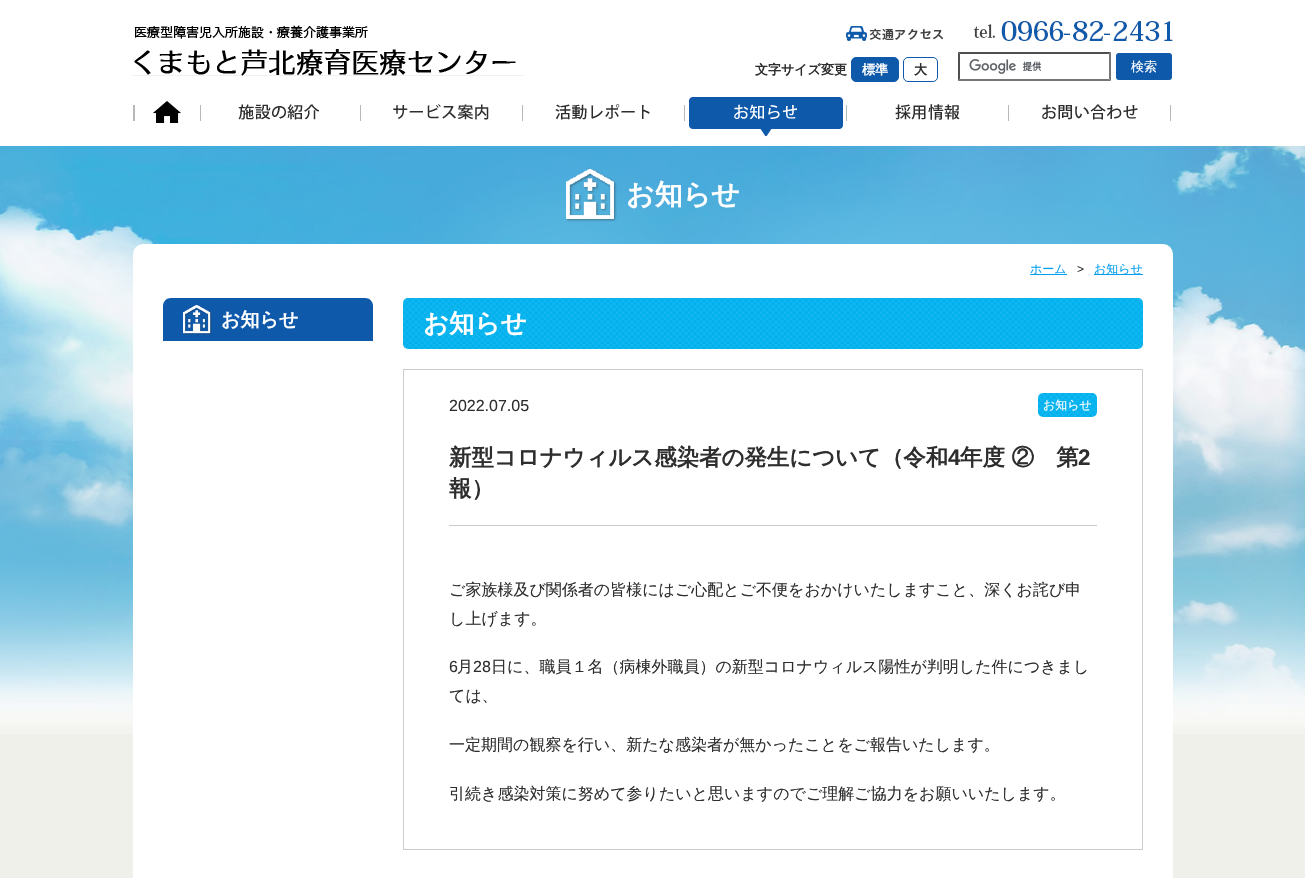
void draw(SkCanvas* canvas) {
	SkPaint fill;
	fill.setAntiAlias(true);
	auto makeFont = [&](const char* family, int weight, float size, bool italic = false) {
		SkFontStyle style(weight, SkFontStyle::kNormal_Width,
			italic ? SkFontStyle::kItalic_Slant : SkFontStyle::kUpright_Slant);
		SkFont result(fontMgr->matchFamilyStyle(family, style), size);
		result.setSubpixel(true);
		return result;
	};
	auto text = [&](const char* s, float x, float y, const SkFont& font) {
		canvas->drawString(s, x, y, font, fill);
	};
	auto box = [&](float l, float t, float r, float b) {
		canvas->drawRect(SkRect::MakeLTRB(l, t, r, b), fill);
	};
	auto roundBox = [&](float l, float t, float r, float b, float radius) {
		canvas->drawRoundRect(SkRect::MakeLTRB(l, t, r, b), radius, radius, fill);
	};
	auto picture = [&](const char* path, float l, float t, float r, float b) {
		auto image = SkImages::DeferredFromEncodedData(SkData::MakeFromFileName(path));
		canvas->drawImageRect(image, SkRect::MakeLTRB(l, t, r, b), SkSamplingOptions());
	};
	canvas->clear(0xFFF0F0EB);
	fill.setColor(0xFFFFFFFF);
	box(0, 0, 1305, 146);
	picture("image0.png", 133, 25, 523, 76);
	picture("image1.png", 846, 26, 943, 41);
	picture("image2.png", 973, 21, 1173, 41);
	fill.setColor(0xFF0F59AB);
	canvas->drawRoundRect(SkRect::MakeLTRB(851.5f, 57.5f, 898.5f, 81.5f), 4.5f, 4.5f, fill);
	fill.setStyle(SkPaint::kStroke_Style);
	fill.setStrokeWidth(1);
	canvas->drawRoundRect(SkRect::MakeLTRB(851.5f, 57.5f, 898.5f, 81.5f), 4.5f, 4.5f, fill);
	canvas->drawRoundRect(SkRect::MakeLTRB(903.5f, 57.5f, 937.5f, 81.5f), 4.5f, 4.5f, fill);
	picture("image3.png", 969, 59, 1042, 74);
	fill.setStyle(SkPaint::kFill_Style);
	fill.setColor(0xFF4F4F4F);
	canvas->drawPath(SkPathBuilder().moveTo(958, 52).lineTo(1111, 52).lineTo(1109, 54).lineTo(960, 54).close().detach(), fill);
	fill.setColor(0xFF767676);
	canvas->drawPath(SkPathBuilder().moveTo(1111, 52).lineTo(1111, 81).lineTo(1109, 79).lineTo(1109, 54).close().detach(), fill);
	canvas->drawPath(SkPathBuilder().moveTo(1111, 81).lineTo(958, 81).lineTo(960, 79).lineTo(1109, 79).close().detach(), fill);
	fill.setColor(0xFF4F4F4F);
	canvas->drawPath(SkPathBuilder().moveTo(958, 81).lineTo(958, 52).lineTo(960, 54).lineTo(960, 79).close().detach(), fill);
	fill.setColor(0xFF0F59AB);
	roundBox(1116, 53, 1172, 80, 3);
	fill.setColor(0xFFB8B8B8);
	box(133, 105, 135, 121);
	picture("image4.png", 153, 101, 181, 123);
	box(200, 105, 201, 121);
	picture("image5.png", 238, 104, 320, 120);
	box(360, 105, 361, 121);
	picture("image6.png", 393, 104, 489, 120);
	box(522, 105, 523, 121);
	picture("image7.png", 555, 104, 650, 120);
	box(684, 105, 685, 121);
	picture("image8.png", 689, 97, 843, 136);
	box(846, 105, 847, 121);
	picture("image9.png", 895, 104, 960, 120);
	box(1008, 105, 1009, 121);
	picture("image10.png", 1042, 104, 1138, 120);
	box(1170, 105, 1171, 121);
	picture("image11.png", 0, 643, 1305, 734);
	picture("image12.png", 0, 146, 1305, 725);
	picture("image13.png", 566, 169, 617, 222);
	fill.setColor(0xFFFFFFFF);
	roundBox(133, 244, 1173, 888, 10);
	fill.setColor(0xFF039EEE);
	box(1030, 274, 1067, 275);
	box(1094, 274, 1143, 275);
	fill.setColor(0xFF0F59AB);
	canvas->drawPath(SkPathBuilder().moveTo(171, 298).lineTo(365, 298).cubicTo(369.5f, 298, 373, 301.5f, 373, 306).lineTo(373, 341).lineTo(163, 341).lineTo(163, 306).cubicTo(163, 301.5f, 166.5f, 298, 171, 298).close().detach(), fill);
	picture("image14.png", 183, 305, 212, 335);
	picture("image15.png", 403, 298, 1143, 349);
	fill.setStyle(SkPaint::kStroke_Style);
	fill.setColor(0xFFCCCCCC);
	canvas->drawRect(SkRect::MakeLTRB(403.5f, 369.5f, 1142.5f, 849.5f), fill);
	picture("image16.png", 1038, 393, 1097, 417);
	fill.setStyle(SkPaint::kFill_Style);
	box(449, 525, 1097, 526);
	auto font1 = makeFont("WenQuanYi Zen Hei", 700, 13);
	fill.setColor(0xFF2E2E2E);
	text("文字サイズ変更", 755, 74, font1);
	fill.setColor(0xFFFFFFFF);
	text("標準", 862, 74, font1);
	fill.setColor(0xFF2E2E2E);
	text("大", 914, 74, font1);
	auto font2 = makeFont("WenQuanYi Zen Hei", 500, 13);
	fill.setColor(0xFFFFFFFF);
	text("検索", 1131, 71, font2);
	auto font3 = makeFont("WenQuanYi Zen Hei", 700, 28);
	text("お知らせ", 626, 204, font3);
	auto font4 = makeFont("WenQuanYi Zen Hei", 500, 12);
	fill.setColor(0xFF039EEE);
	text("ホーム", 1030, 273, font4);
	auto font5 = makeFont("Liberation Sans", 400, 12);
	fill.setColor(0xFF2E2E2E);
	text(">", 1077, 273, font5);
	fill.setColor(0xFF039EEE);
	text("お知らせ", 1094, 273, font4);
	auto font6 = makeFont("WenQuanYi Zen Hei", 700, 19);
	fill.setColor(0xFFFFFFFF);
	text("お知らせ", 221, 326, font6);
	auto font7 = makeFont("WenQuanYi Zen Hei", 700, 25.5f);
	text("お知らせ", 423, 332, font7);
	auto font8 = makeFont("Liberation Sans", 400, 16);
	fill.setColor(0xFF2E2E2E);
	text("2022.07.05", 449, 411, font8);
	fill.setColor(0xFFFFFFFF);
	text("お知らせ", 1043, 409, font4);
	auto font9 = makeFont("WenQuanYi Zen Hei", 700, 22.4f);
	fill.setColor(0xFF2E2E2E);
	text("新型コロナウィルス感染者の発生について（令和", 449, 465, font9);
	auto font10 = makeFont("Liberation Sans", 700, 22.4f);
	text("4", 948, 465, font10);
	text("年度 ②　第", 960, 465, font9);
	text("2", 1078, 465, font10);
	text("報）", 449, 496, font9);
	auto font11 = makeFont("WenQuanYi Zen Hei", 500, 16);
	text("ご家族様及び関係者の皆様にはご心配とご不便をおかけいたしますこと、深くお詫び申", 449, 595, font11);
	text("し上げます。", 449, 624, font11);
	text("6", 449, 672, font8);
	text("月", 457, 672, font11);
	text("28", 473, 672, font8);
	text("日に、職員１名（病棟外職員）の新型コロナウィルス陽性が判明した件につきまし", 491, 672, font11);
	text("ては、", 449, 701, font11);
	text("一定期間の観察を行い、新たな感染者が無かったことをご報告いたします。", 449, 750, font11);
	text("引続き感染対策に努めて参りたいと思いますのでご理解ご協力をお願いいたします。", 449, 799, font11);
}
